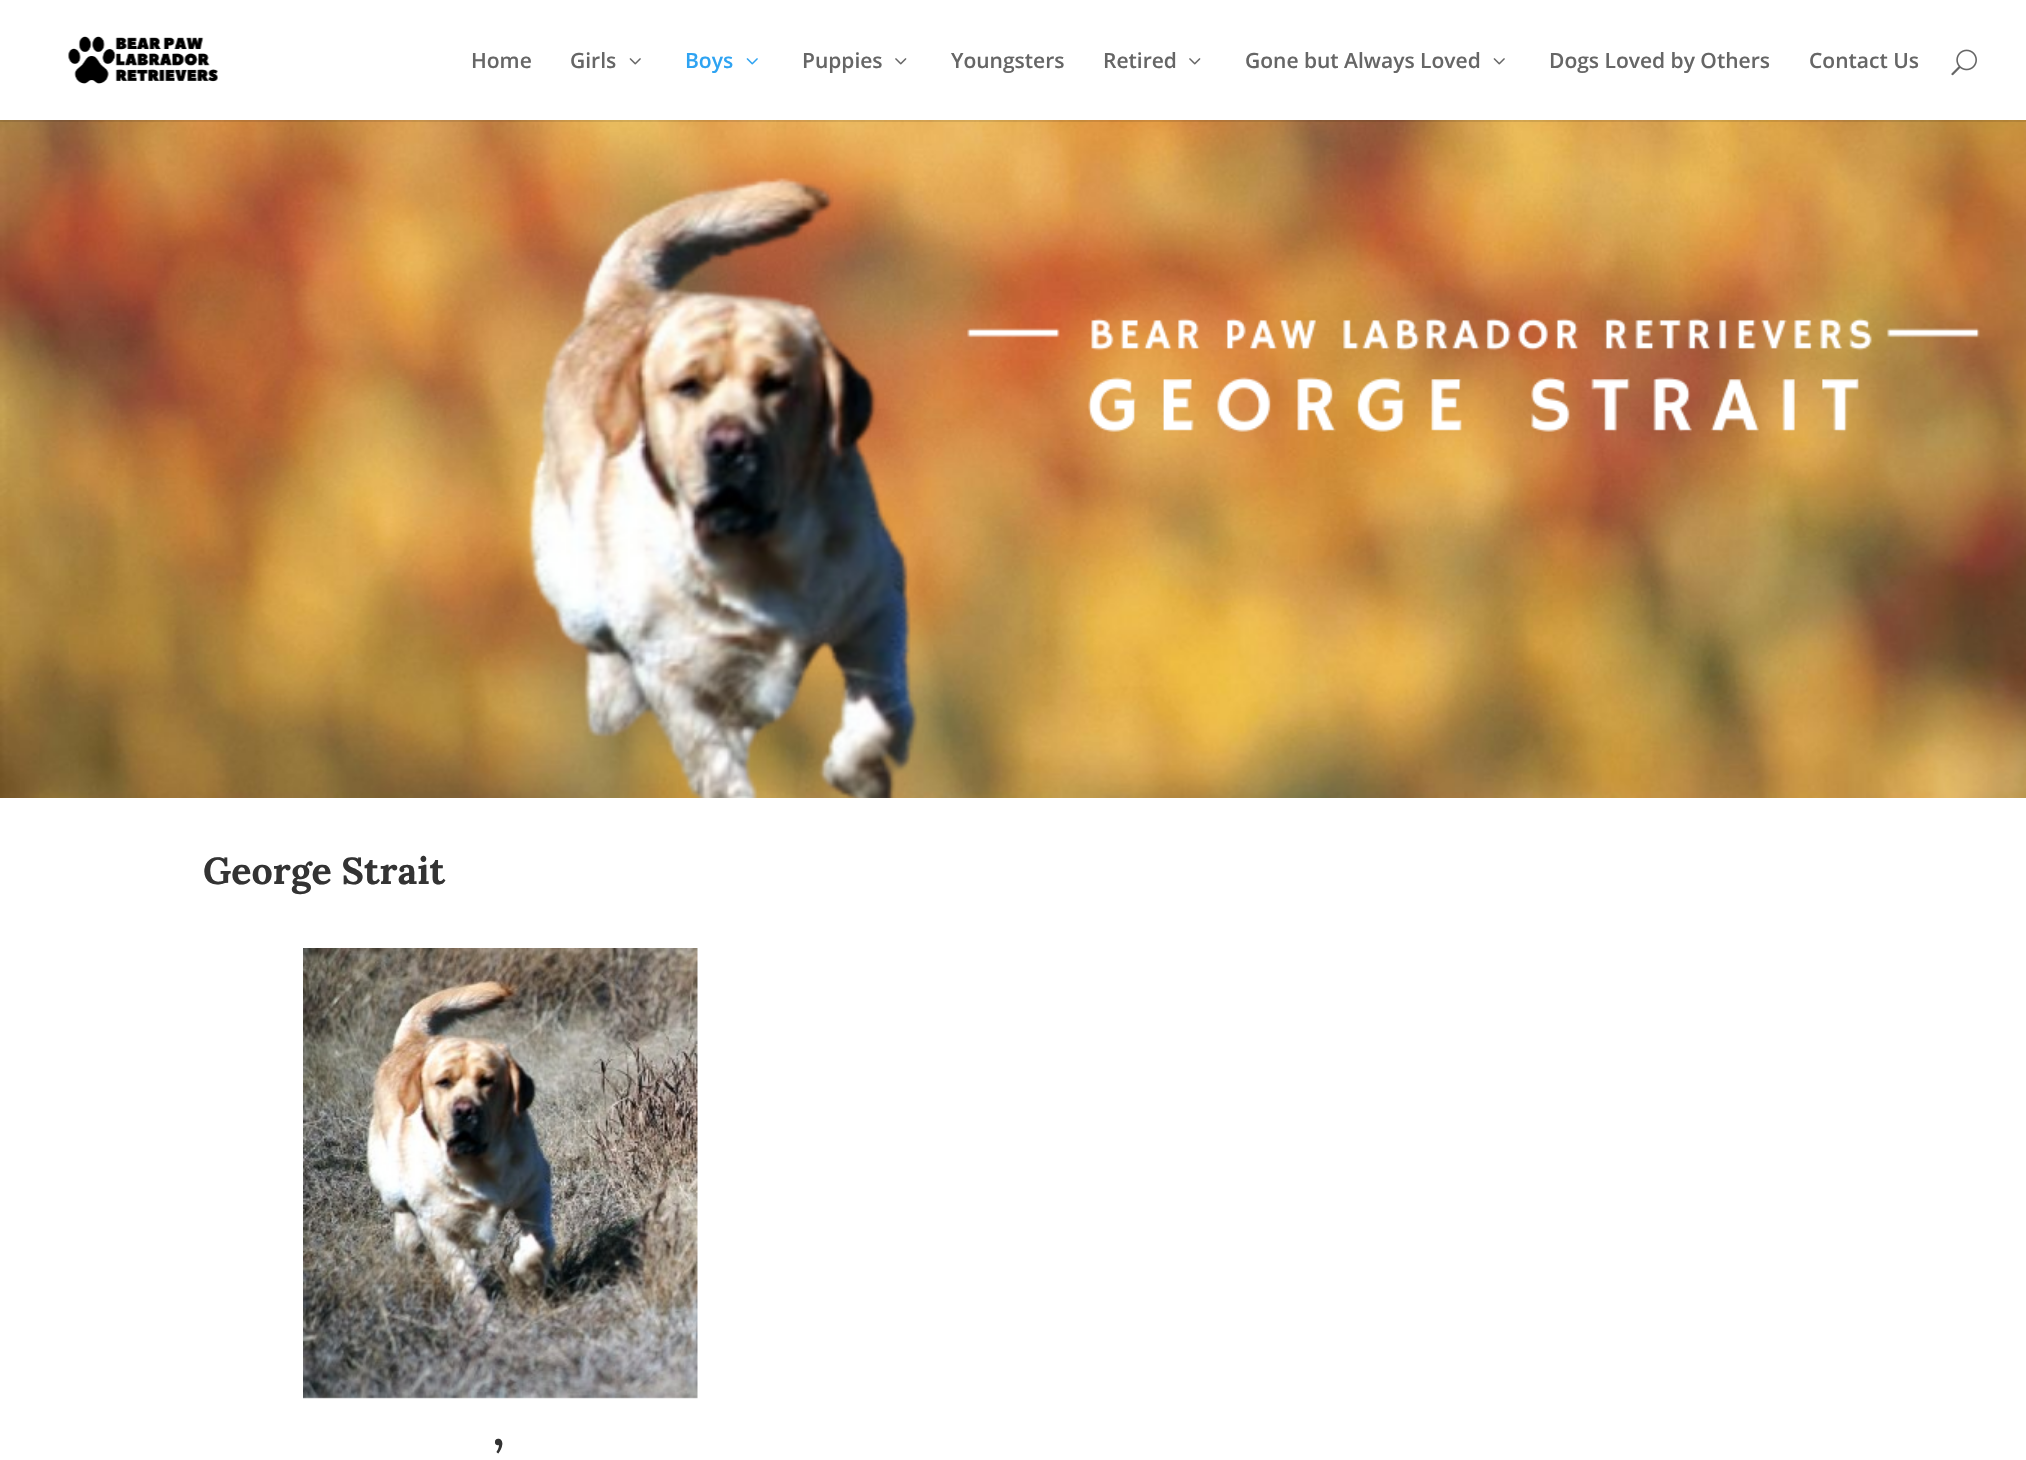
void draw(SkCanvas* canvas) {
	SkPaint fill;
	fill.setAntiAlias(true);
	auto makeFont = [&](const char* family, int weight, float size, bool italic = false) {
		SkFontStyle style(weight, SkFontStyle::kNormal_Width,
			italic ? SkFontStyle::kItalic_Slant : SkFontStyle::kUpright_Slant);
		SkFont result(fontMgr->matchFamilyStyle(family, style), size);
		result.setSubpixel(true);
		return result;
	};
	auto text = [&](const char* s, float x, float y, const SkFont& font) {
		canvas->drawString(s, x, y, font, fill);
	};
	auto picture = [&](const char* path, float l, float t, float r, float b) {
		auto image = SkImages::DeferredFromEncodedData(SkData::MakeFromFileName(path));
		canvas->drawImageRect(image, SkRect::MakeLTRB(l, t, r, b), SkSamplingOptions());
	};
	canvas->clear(0xFFFFFFFF);
	picture("image5.png", 0, 120, 2026, 798);
	fill.setColor(0x1A000000);
	canvas->drawPath(SkPathBuilder().moveTo(0, 120).lineTo(0, 122).lineTo(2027, 122).lineTo(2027, 2).lineTo(2026, 2).lineTo(2026, 120).close().detach(), fill);
	picture("image0.png", 68, 36, 218, 84);
	picture("image1.png", 629, 58, 641, 65);
	picture("image2.png", 746, 58, 758, 65);
	picture("image3.png", 895, 58, 907, 65);
	picture("image3.png", 1189, 58, 1201, 65);
	picture("image1.png", 1493, 58, 1505, 65);
	picture("image4.png", 1951, 49, 1977, 76);
	picture("image6.png", 303, 948, 698, 1399);
	auto font1 = makeFont("Open Sans", 600, 21);
	fill.setColor(0xFF666666);
	text("Home", 471, 68, font1);
	text("Girls", 570, 68, font1);
	fill.setColor(0xFF2EA3F2);
	text("Boys", 685, 68, font1);
	fill.setColor(0xFF666666);
	text("Puppies", 802, 68, font1);
	text("Youngsters", 951, 68, font1);
	text("Retired", 1103, 68, font1);
	text("Gone but Always Loved", 1245, 68, font1);
	text("Dogs Loved by Others", 1549, 68, font1);
	text("Contact Us", 1809, 68, font1);
	auto font2 = makeFont("Lora", 700, 37.5f);
	fill.setColor(0xFF333333);
	text("George Strait", 203, 884, font2);
	auto font3 = makeFont("Lora", 700, 45);
	text("’", 494, 1473, font3);
}
